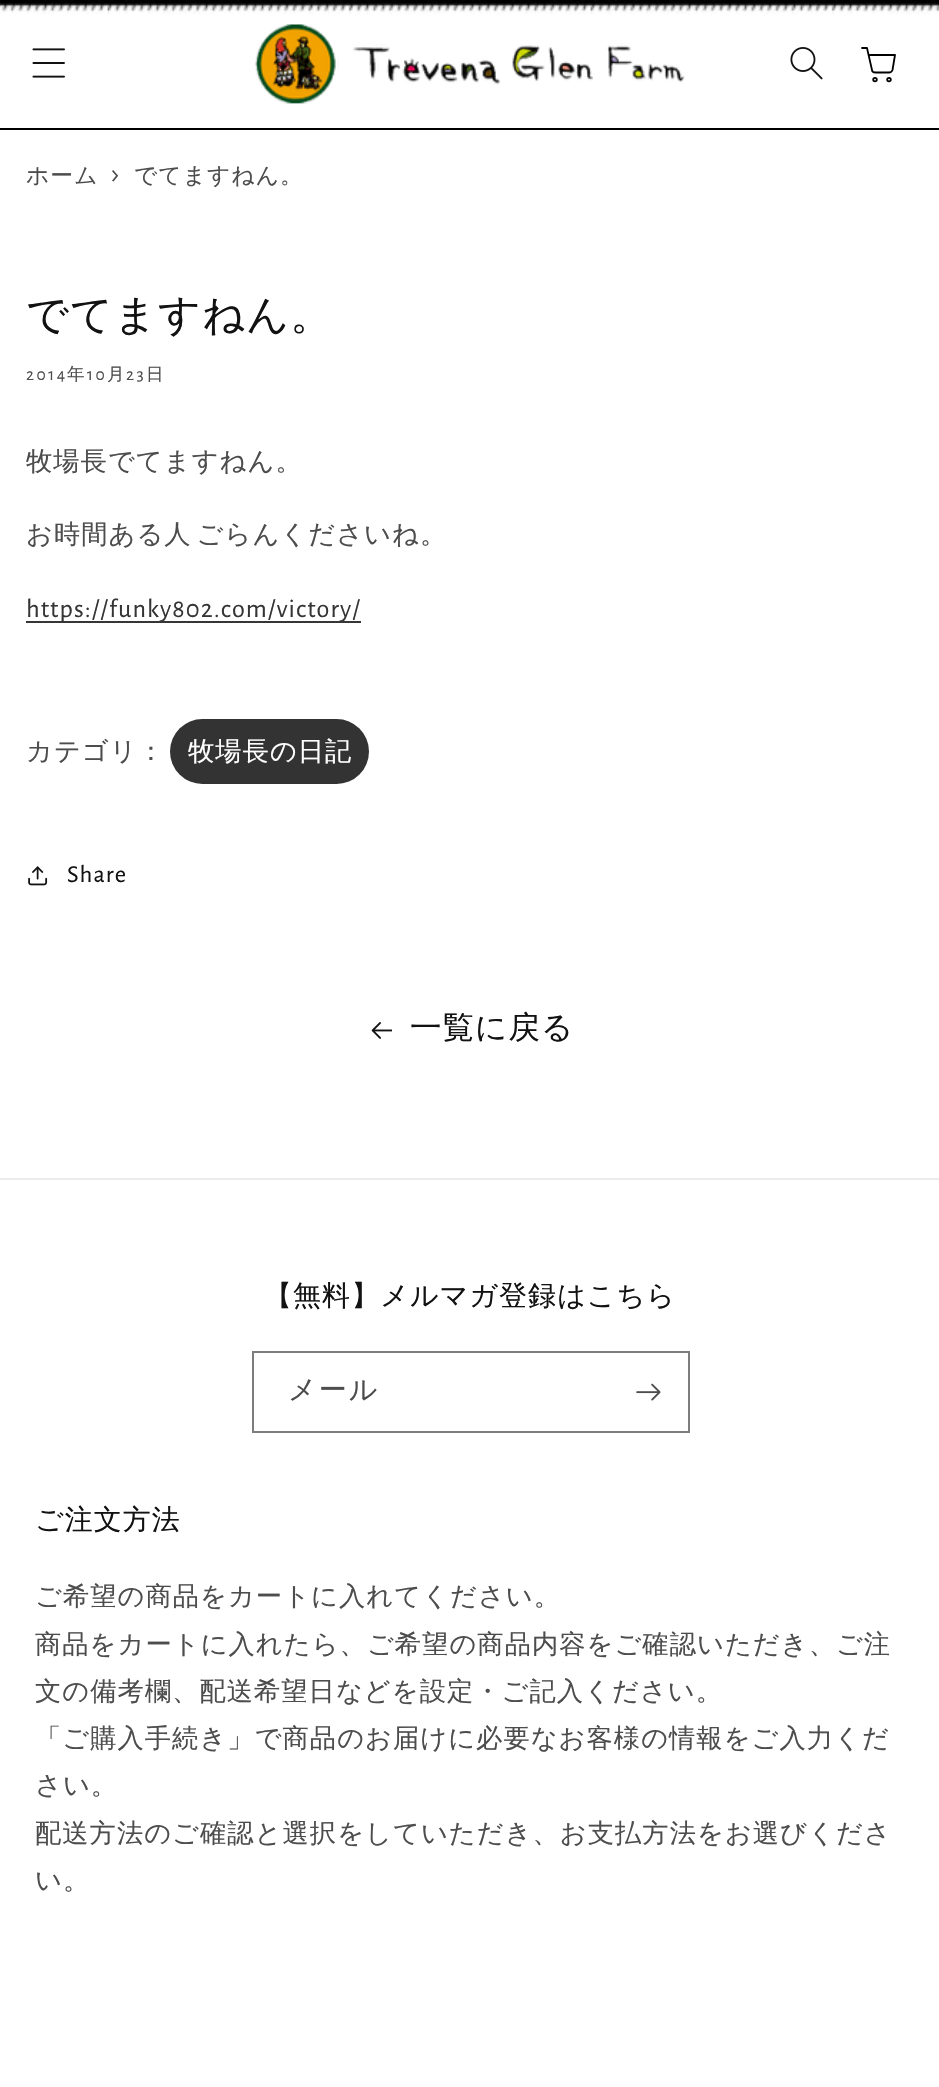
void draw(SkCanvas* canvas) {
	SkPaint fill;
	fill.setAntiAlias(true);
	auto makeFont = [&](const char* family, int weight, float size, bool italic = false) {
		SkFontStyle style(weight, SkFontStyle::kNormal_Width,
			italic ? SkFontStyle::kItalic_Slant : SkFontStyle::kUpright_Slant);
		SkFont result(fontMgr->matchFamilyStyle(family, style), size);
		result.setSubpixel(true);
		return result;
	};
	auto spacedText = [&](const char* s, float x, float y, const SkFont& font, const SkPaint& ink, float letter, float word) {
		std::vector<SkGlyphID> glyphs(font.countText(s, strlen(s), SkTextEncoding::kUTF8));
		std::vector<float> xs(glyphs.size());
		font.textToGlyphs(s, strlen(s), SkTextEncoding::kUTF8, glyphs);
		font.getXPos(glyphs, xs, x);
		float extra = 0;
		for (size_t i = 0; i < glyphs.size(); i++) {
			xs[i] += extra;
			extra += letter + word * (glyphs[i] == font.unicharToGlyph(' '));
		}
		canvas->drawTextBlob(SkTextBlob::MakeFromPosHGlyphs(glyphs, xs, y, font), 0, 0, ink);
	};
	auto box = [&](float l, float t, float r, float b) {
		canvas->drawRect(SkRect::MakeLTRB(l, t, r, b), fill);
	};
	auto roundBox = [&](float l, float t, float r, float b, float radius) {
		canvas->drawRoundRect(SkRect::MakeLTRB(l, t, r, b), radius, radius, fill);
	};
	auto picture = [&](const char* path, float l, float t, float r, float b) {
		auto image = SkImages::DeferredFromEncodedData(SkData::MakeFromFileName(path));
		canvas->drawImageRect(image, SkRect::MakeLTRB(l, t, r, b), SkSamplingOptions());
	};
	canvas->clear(0xFFFFFFFF);
	picture("image0.png", 0, 0, 939, 15);
	fill.setColor(0xFF000000);
	box(0, 128, 939, 130);
	picture("image1.png", 32, 48, 65, 78);
	picture("image2.png", 255, 24, 685, 104);
	picture("image3.png", 790, 47, 823, 80);
	fill.setStyle(SkPaint::kStroke_Style);
	fill.setStrokeWidth(1.8f);
	canvas->drawCircle(875, 79.6f, 1.8f, fill);
	canvas->drawCircle(889, 79.6f, 1.8f, fill);
	fill.setStrokeCap(SkPaint::kRound_Cap);
	fill.setStrokeJoin(SkPaint::kRound_Join);
	canvas->drawPath(SkPathBuilder().moveTo(862, 48).lineTo(867, 48).lineTo(872, 70).cubicTo(872, 71.5f, 873.5f, 72.5f, 875.5f, 72.5f).lineTo(889, 72.5f).cubicTo(890.5f, 72.5f, 892, 71.5f, 892.5f, 70).lineTo(895, 55).lineTo(870, 55).detach(), fill);
	fill.setStyle(SkPaint::kFill_Style);
	fill.setColor(0xFF363636);
	box(26, 621, 361, 623);
	fill.setColor(0xFF333333);
	roundBox(170, 719, 369, 784, 32.5f);
	picture("image4.png", 28, 866, 48, 886);
	picture("image5.png", 371, 1022, 392, 1039);
	fill.setColor(0xFFECECEC);
	box(0, 1178, 939, 1180);
	fill.setStyle(SkPaint::kStroke_Style);
	fill.setStrokeWidth(2);
	fill.setStrokeCap(SkPaint::kButt_Cap);
	fill.setStrokeJoin(SkPaint::kMiter_Join);
	fill.setColor(0xFF7D7D7D);
	canvas->drawRect(SkRect::MakeLTRB(253, 1352, 689, 1432), fill);
	picture("image6.png", 636, 1383, 661, 1401);
	auto font1 = makeFont("WenQuanYi Zen Hei", 500, 22.75f);
	fill.setStyle(SkPaint::kFill_Style);
	fill.setColor(0xFF4D4D4D);
	spacedText("ホーム", 26, 183, font1, fill, 1.05f, 0);
	auto font2 = makeFont("Alegreya Sans", 400, 31.5f);
	spacedText("›", 112, 183, font2, fill, 1.05f, 0);
	spacedText("でてますねん。", 134, 183, font1, fill, 1.05f, 0);
	auto font3 = makeFont("WenQuanYi Zen Hei", 500, 42);
	fill.setColor(0xFF121212);
	spacedText("でてますねん。", 26, 329, font3, fill, 1.05f, 0);
	auto font4 = makeFont("Alegreya Sans", 400, 17.5f);
	fill.setColor(0xFF4D4D4D);
	spacedText("2014", 26, 380, font4, fill, 2.5f, 0);
	auto font5 = makeFont("WenQuanYi Zen Hei", 500, 17.5f);
	spacedText("年", 67, 380, font5, fill, 2.5f, 0);
	spacedText("10", 87, 380, font4, fill, 2.5f, 0);
	spacedText("月", 107, 380, font5, fill, 2.5f, 0);
	spacedText("23", 126, 380, font4, fill, 2.5f, 0);
	spacedText("日", 146, 380, font5, fill, 2.5f, 0);
	auto font6 = makeFont("WenQuanYi Zen Hei", 500, 26.25f);
	spacedText("牧場長でてますねん。", 26, 470, font6, fill, 1.05f, 0);
	spacedText("お時間ある人 ごらんくださいね。", 26, 543, font6, fill, 1.05f, -4);
	auto font7 = makeFont("Alegreya Sans", 400, 26.25f);
	fill.setColor(0xFF353535);
	spacedText("https://funky802.com/victory/", 26, 617, font7, fill, 1.05f, 0);
	fill.setColor(0xFF4D4D4D);
	spacedText("カテゴリ：", 26, 760, font6, fill, 1.05f, 0);
	fill.setColor(0xFFFFFFFF);
	spacedText("牧場長の日記", 188, 760, font6, fill, 1.05f, 0);
	auto font8 = makeFont("Alegreya Sans", 400, 24.5f);
	fill.setColor(0xFF121212);
	spacedText("Share", 67, 882, font8, fill, 1.05f, 0);
	auto font9 = makeFont("WenQuanYi Zen Hei", 500, 31.5f);
	spacedText("一覧に戻る", 410, 1038, font9, fill, 1.05f, 0);
	auto font10 = makeFont("WenQuanYi Zen Hei", 500, 28);
	spacedText("【無料】メルマガ登録はこちら", 264, 1305, font10, fill, 1.05f, 0);
	fill.setColor(0xFF4D4D4D);
	spacedText("メール", 288, 1399, font10, fill, 2, 0);
	fill.setColor(0xFF121212);
	spacedText("ご注文方法", 35, 1529, font10, fill, 1.05f, 0);
	fill.setColor(0xFF4D4D4D);
	spacedText("ご希望の商品をカートに入れてください。", 35, 1605, font6, fill, 1.05f, 0);
	spacedText("商品をカートに入れたら、ご希望の商品内容をご確認いただき、ご注", 35, 1653, font6, fill, 1.05f, 0);
	spacedText("文の備考欄、配送希望日などを設定・ご記入ください。", 35, 1700, font6, fill, 1.05f, 0);
	spacedText("「ご購入手続き」で商品のお届けに必要なお客様の情報をご入力くだ", 35, 1747, font6, fill, 1.05f, 0);
	spacedText("さい。", 35, 1794, font6, fill, 1.05f, 0);
	spacedText("配送方法のご確認と選択をしていただき、お支払方法をお選びくださ", 35, 1842, font6, fill, 1.05f, 0);
	spacedText("い。", 35, 1889, font6, fill, 1.05f, 0);
}
